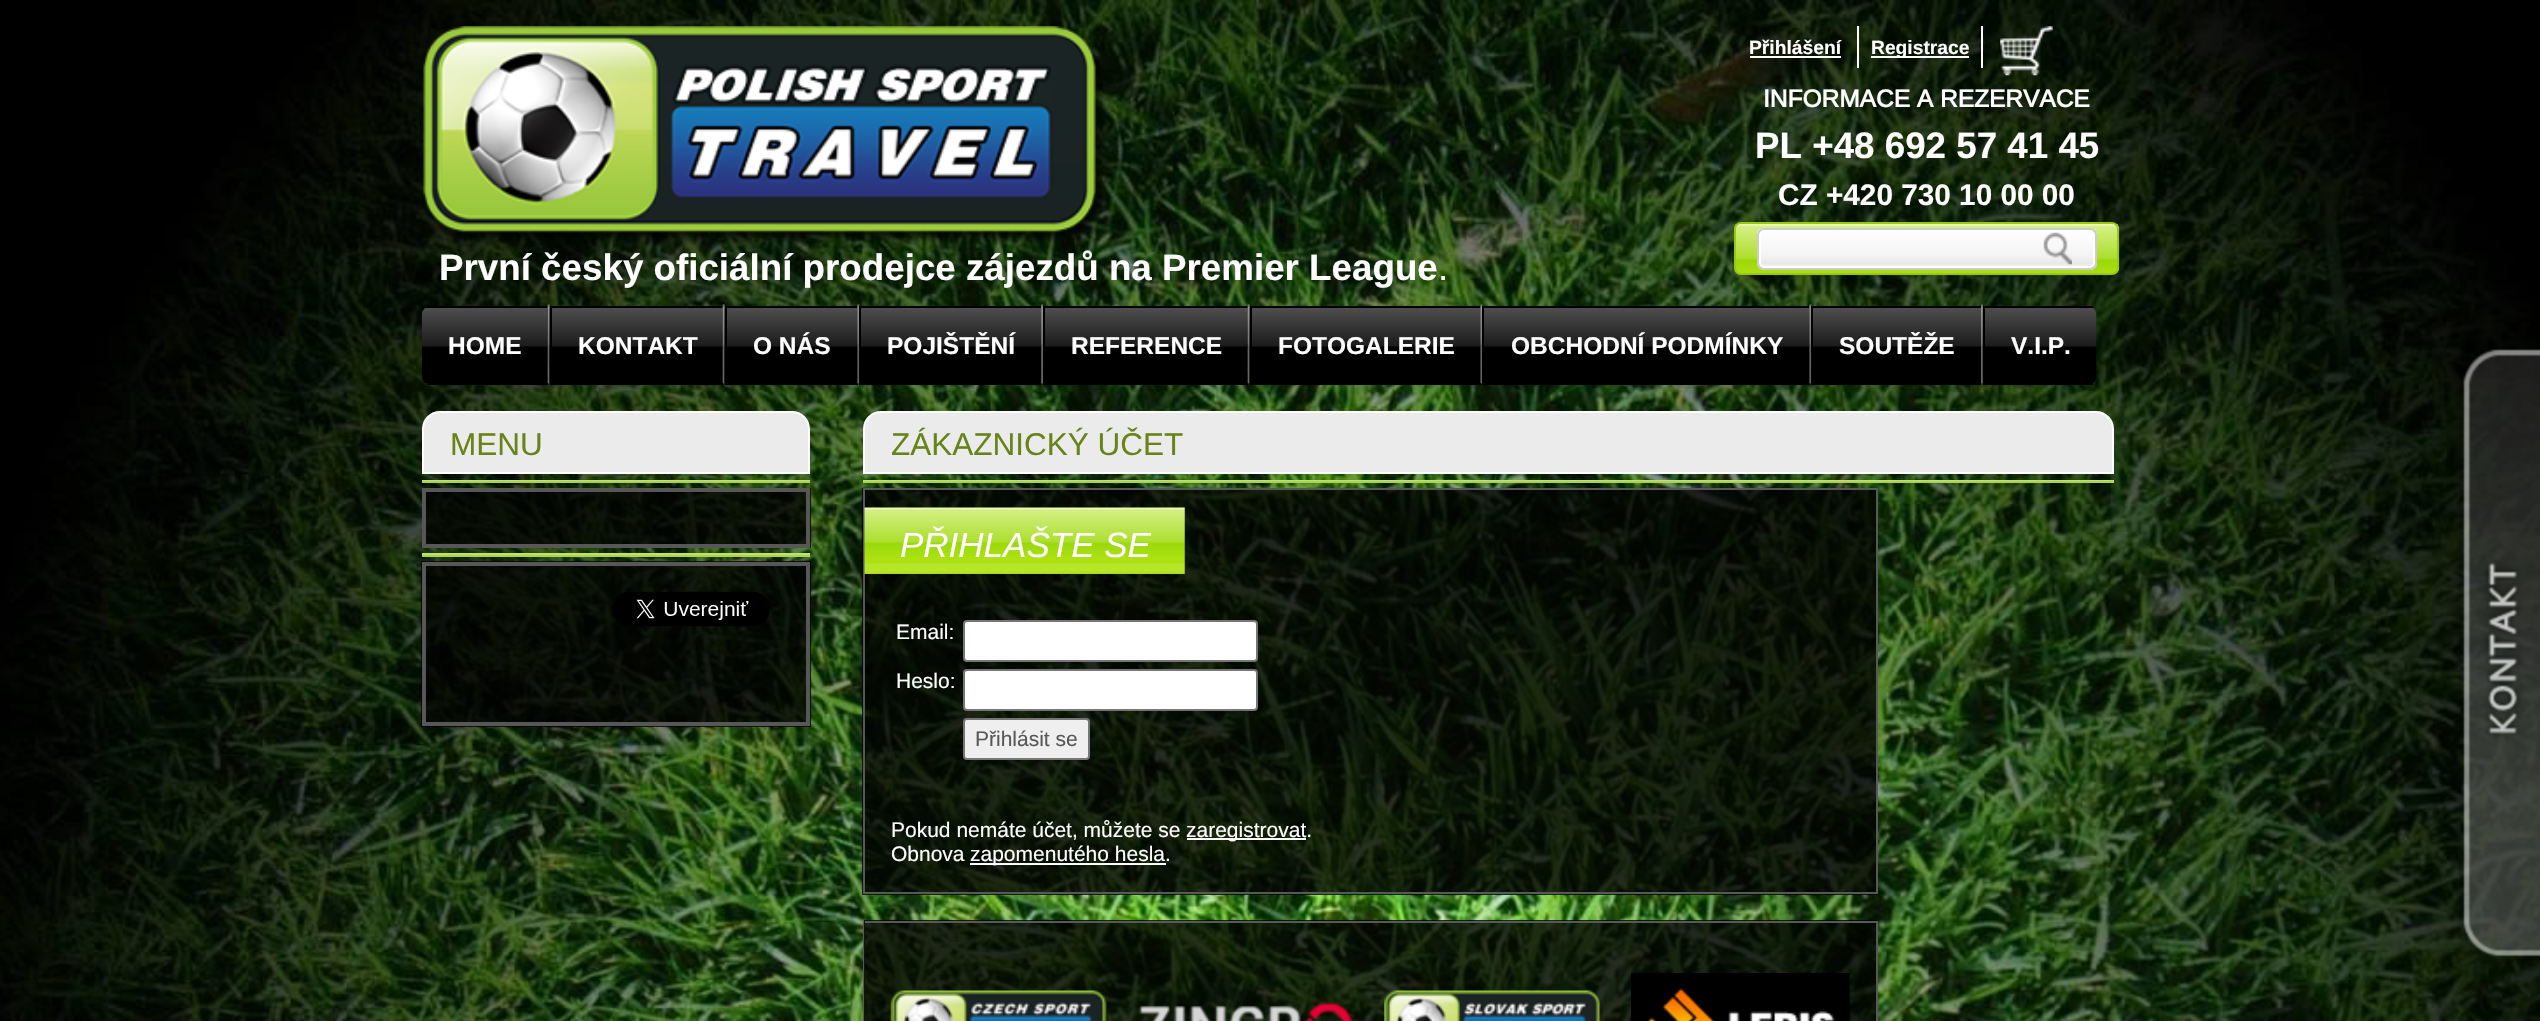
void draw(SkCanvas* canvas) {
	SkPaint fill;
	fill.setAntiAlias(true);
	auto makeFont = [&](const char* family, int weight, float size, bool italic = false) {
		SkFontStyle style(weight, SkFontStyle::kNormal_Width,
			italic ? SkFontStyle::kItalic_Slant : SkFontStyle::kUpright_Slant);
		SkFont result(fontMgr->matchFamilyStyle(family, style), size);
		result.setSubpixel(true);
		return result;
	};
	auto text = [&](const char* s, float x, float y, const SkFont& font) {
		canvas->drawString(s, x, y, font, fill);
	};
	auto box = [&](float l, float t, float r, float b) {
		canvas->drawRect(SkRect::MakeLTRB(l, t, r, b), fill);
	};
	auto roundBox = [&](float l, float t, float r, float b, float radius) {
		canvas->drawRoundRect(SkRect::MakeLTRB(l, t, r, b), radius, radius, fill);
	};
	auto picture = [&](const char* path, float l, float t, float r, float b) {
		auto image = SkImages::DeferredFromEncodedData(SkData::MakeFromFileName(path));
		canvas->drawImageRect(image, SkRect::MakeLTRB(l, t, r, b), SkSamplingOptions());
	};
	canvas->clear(0xFFFFFFFF);
	picture("image0.png", 0, 0, 2540, 1021);
	fill.setColor(0xFFFFFFFF);
	box(1857, 26, 1859, 68);
	box(1750, 56, 1841, 58);
	box(1981, 26, 1983, 68);
	box(1871, 56, 1969, 58);
	picture("image1.png", 2000, 26, 2053, 76);
	picture("image2.png", 1734, 224, 2120, 273);
	fill.setStyle(SkPaint::kStroke_Style);
	fill.setStrokeWidth(2);
	fill.setColor(0xFF9AC810);
	canvas->drawRoundRect(SkRect::MakeLTRB(1735, 223, 2118, 274), 6, 6, fill);
	fill.setStyle(SkPaint::kFill_Style);
	fill.setColor(0xFFEEEEEE);
	roundBox(1757, 228, 2097, 270, 7);
	picture("image3.png", 1757, 229, 2097, 265);
	fill.setStyle(SkPaint::kStroke_Style);
	fill.setColor(0xFFFFFFFF);
	canvas->drawRoundRect(SkRect::MakeLTRB(1760, 230, 2094, 267), 4, 4, fill);
	fill.setColor(0xFFCCCCCC);
	canvas->drawRoundRect(SkRect::MakeLTRB(1758, 229, 2096, 269), 6, 6, fill);
	picture("image4.png", 2043, 232, 2072, 265);
	picture("image5.png", 423, 26, 1105, 245);
	picture("image6.png", 421, 308, 548, 384);
	fill.setStyle(SkPaint::kFill_Style);
	fill.setColor(0xFF000000);
	box(427, 306, 548, 308);
	box(427, 383, 548, 385);
	picture("image7.png", 547, 304, 550, 380);
	picture("image8.png", 547, 304, 550, 384);
	picture("image9.png", 549, 308, 723, 384);
	box(550, 306, 723, 308);
	box(550, 383, 723, 385);
	box(550, 306, 552, 347);
	picture("image10.png", 722, 304, 725, 380);
	picture("image11.png", 722, 304, 725, 384);
	picture("image12.png", 724, 308, 858, 384);
	box(725, 306, 858, 308);
	box(725, 383, 858, 385);
	box(725, 306, 727, 347);
	picture("image13.png", 857, 304, 860, 380);
	picture("image14.png", 857, 304, 860, 384);
	picture("image15.png", 861, 308, 1042, 384);
	box(859, 306, 1041, 308);
	box(859, 383, 1041, 385);
	box(859, 306, 861, 385);
	picture("image16.png", 1041, 304, 1043, 380);
	picture("image17.png", 1041, 304, 1043, 384);
	picture("image18.png", 1045, 308, 1248, 383);
	box(1043, 306, 1248, 308);
	box(1043, 383, 1248, 385);
	box(1043, 306, 1045, 385);
	picture("image19.png", 1247, 304, 1250, 380);
	picture("image20.png", 1247, 304, 1250, 384);
	picture("image21.png", 1249, 308, 1481, 384);
	box(1250, 306, 1481, 308);
	box(1250, 383, 1481, 385);
	box(1250, 306, 1252, 347);
	picture("image22.png", 1480, 304, 1483, 380);
	picture("image23.png", 1480, 304, 1483, 384);
	picture("image24.png", 1484, 308, 1810, 383);
	box(1482, 306, 1810, 308);
	box(1482, 383, 1810, 385);
	box(1482, 306, 1484, 385);
	picture("image25.png", 1809, 304, 1812, 380);
	picture("image26.png", 1809, 304, 1812, 384);
	picture("image27.png", 1813, 308, 1981, 383);
	box(1811, 306, 1981, 308);
	box(1811, 383, 1981, 385);
	box(1811, 306, 1813, 385);
	picture("image28.png", 1981, 304, 1983, 380);
	picture("image29.png", 1981, 304, 1983, 384);
	picture("image30.png", 1982, 308, 2097, 383);
	box(1983, 306, 2093, 308);
	box(1983, 383, 2093, 385);
	box(1983, 306, 1985, 347);
	fill.setColor(0xFFEBEBEB);
	canvas->drawPath(SkPathBuilder().moveTo(440, 412).lineTo(792, 412).cubicTo(801.5f, 412, 809, 419.5f, 809, 429).lineTo(809, 473).lineTo(423, 473).lineTo(423, 429).cubicTo(423, 419.5f, 430.5f, 412, 440, 412).close().detach(), fill);
	fill.setStyle(SkPaint::kStroke_Style);
	fill.setColor(0xFFFFFFFF);
	canvas->drawPath(SkPathBuilder().moveTo(440, 412).lineTo(792, 412).cubicTo(801.5f, 412, 809, 419.5f, 809, 429).lineTo(809, 473).lineTo(423, 473).lineTo(423, 429).cubicTo(423, 419.5f, 430.5f, 412, 440, 412).close().detach(), fill);
	fill.setStyle(SkPaint::kFill_Style);
	fill.setColor(0xFFC4E164);
	box(422, 480, 810, 481);
	fill.setColor(0xFFAAD35C);
	box(422, 481, 810, 483);
	fill.setColor(0xC9000000);
	box(426, 488, 811, 548);
	fill.setStyle(SkPaint::kStroke_Style);
	fill.setStrokeWidth(4);
	fill.setColor(0xFF575757);
	canvas->drawRect(SkRect::MakeLTRB(424, 490, 808, 546), fill);
	fill.setStyle(SkPaint::kFill_Style);
	fill.setColor(0xFFC4E164);
	box(422, 553, 810, 555);
	fill.setColor(0xFFAAD35C);
	box(422, 555, 810, 557);
	fill.setColor(0xC9000000);
	box(421, 561, 811, 727);
	fill.setStyle(SkPaint::kStroke_Style);
	fill.setColor(0xFF575757);
	canvas->drawRect(SkRect::MakeLTRB(424, 564, 808, 724), fill);
	picture("image31.png", 613, 591, 770, 627);
	fill.setStyle(SkPaint::kFill_Style);
	fill.setColor(0xFFEBEBEB);
	canvas->drawPath(SkPathBuilder().moveTo(881, 412).lineTo(2096, 412).cubicTo(2105.5f, 412, 2113, 419.5f, 2113, 429).lineTo(2113, 473).lineTo(864, 473).lineTo(864, 429).cubicTo(864, 419.5f, 871.5f, 412, 881, 412).close().detach(), fill);
	fill.setStyle(SkPaint::kStroke_Style);
	fill.setStrokeWidth(2);
	fill.setColor(0xFFFFFFFF);
	canvas->drawPath(SkPathBuilder().moveTo(881, 412).lineTo(2096, 412).cubicTo(2105.5f, 412, 2113, 419.5f, 2113, 429).lineTo(2113, 473).lineTo(864, 473).lineTo(864, 429).cubicTo(864, 419.5f, 871.5f, 412, 881, 412).close().detach(), fill);
	fill.setStyle(SkPaint::kFill_Style);
	fill.setColor(0xFFC4E164);
	box(863, 480, 2114, 481);
	fill.setColor(0xFFAAD35C);
	box(863, 481, 2114, 483);
	fill.setColor(0xC9000000);
	box(862, 488, 1878, 895);
	fill.setStyle(SkPaint::kStroke_Style);
	fill.setColor(0xFF585858);
	canvas->drawRect(SkRect::MakeLTRB(864, 489, 1877, 893), fill);
	picture("image32.png", 864, 507, 1185, 574);
	fill.setStyle(SkPaint::kFill_Style);
	fill.setColor(0xFFFFFFFF);
	canvas->drawRoundRect(SkRect::MakeLTRB(964, 621, 1257, 661), 3, 3, fill);
	fill.setStyle(SkPaint::kStroke_Style);
	fill.setColor(0xFF767676);
	canvas->drawRoundRect(SkRect::MakeLTRB(964, 621, 1257, 661), 3, 3, fill);
	fill.setStyle(SkPaint::kFill_Style);
	fill.setColor(0xFFFFFFFF);
	canvas->drawRoundRect(SkRect::MakeLTRB(964, 670, 1257, 710), 3, 3, fill);
	fill.setStyle(SkPaint::kStroke_Style);
	fill.setColor(0xFF767676);
	canvas->drawRoundRect(SkRect::MakeLTRB(964, 670, 1257, 710), 3, 3, fill);
	fill.setStyle(SkPaint::kFill_Style);
	fill.setColor(0xFFEFEFEF);
	canvas->drawRoundRect(SkRect::MakeLTRB(964, 719, 1089, 759), 3, 3, fill);
	fill.setStyle(SkPaint::kStroke_Style);
	fill.setColor(0xFF767676);
	canvas->drawRoundRect(SkRect::MakeLTRB(964, 719, 1089, 759), 3, 3, fill);
	fill.setStyle(SkPaint::kFill_Style);
	fill.setColor(0xFFFFFFFF);
	box(1187, 838, 1306, 840);
	box(970, 863, 1166, 865);
	fill.setColor(0xFF585858);
	box(1876, 921, 1878, 1021);
	box(863, 921, 865, 1021);
	fill.setColor(0xC9000000);
	box(864, 920, 1876, 1021);
	fill.setColor(0xFF585858);
	box(865, 921, 1876, 923);
	picture("image33.png", 890, 990, 1109, 1021);
	picture("image34.png", 1139, 1002, 1354, 1021);
	picture("image35.png", 1384, 990, 1603, 1021);
	picture("image36.png", 1631, 973, 1850, 1021);
	picture("image37.png", 2457, 349, 2540, 963);
	auto font1 = makeFont("Liberation Sans", 700, 19.25f);
	fill.setColor(0xFFFFFFFF);
	text("Přihlášení", 1749, 54, font1);
	text("Registrace", 1871, 54, font1);
	auto font2 = makeFont("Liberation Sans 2", 700, 24.5f);
	text("INFORMACE A REZERVACE", 1763, 107, font2);
	auto font3 = makeFont("Liberation Sans", 700, 36.75f);
	text("PL +48 692 57 41 45", 1755, 158, font3);
	auto font4 = makeFont("Liberation Sans", 700, 29.75f);
	text("CZ +420 730 10 00 00", 1778, 205, font4);
	text("První český oficiální prodejce zájezdů na Premier League", 439, 280, font3);
	auto font5 = makeFont("Liberation Sans", 400, 36.75f);
	text(".", 1438, 280, font5);
	auto font6 = makeFont("Liberation Sans", 700, 24.5f);
	text("HOME", 448, 354, font6);
	text("KONTAKT", 578, 354, font6);
	text("O NÁS", 753, 354, font6);
	text("POJIŠTĚNÍ", 887, 354, font6);
	text("REFERENCE", 1071, 354, font6);
	text("FOTOGALERIE", 1278, 354, font6);
	text("OBCHODNÍ PODMÍNKY", 1511, 354, font6);
	text("SOUTĚŽE", 1839, 354, font6);
	text("V.I.P.", 2011, 354, font6);
	auto font7 = makeFont("Liberation Sans", 400, 31.5f);
	fill.setColor(0xFF68831A);
	text("MENU", 450, 455, font7);
	text("ZÁKAZNICKÝ ÚČET", 891, 455, font7);
	auto font8 = makeFont("Liberation Sans", 400, 35, true);
	fill.setColor(0xFFFFFFFF);
	text("PŘIHLAŠTE SE", 900, 557, font8);
	auto font9 = makeFont("Liberation Sans", 400, 21);
	text("Email:", 896, 639, font9);
	text("Heslo:", 896, 688, font9);
	fill.setColor(0xFF575757);
	text("Přihlásit se", 975, 746, font9);
	fill.setColor(0xFFFFFFFF);
	text("Pokud nemáte účet, můžete se", 891, 837, font9);
	text("zaregistrovat.", 1186, 837, font9);
	text("Obnova", 891, 861, font9);
	text("zapomenutého hesla.", 970, 861, font9);
}
